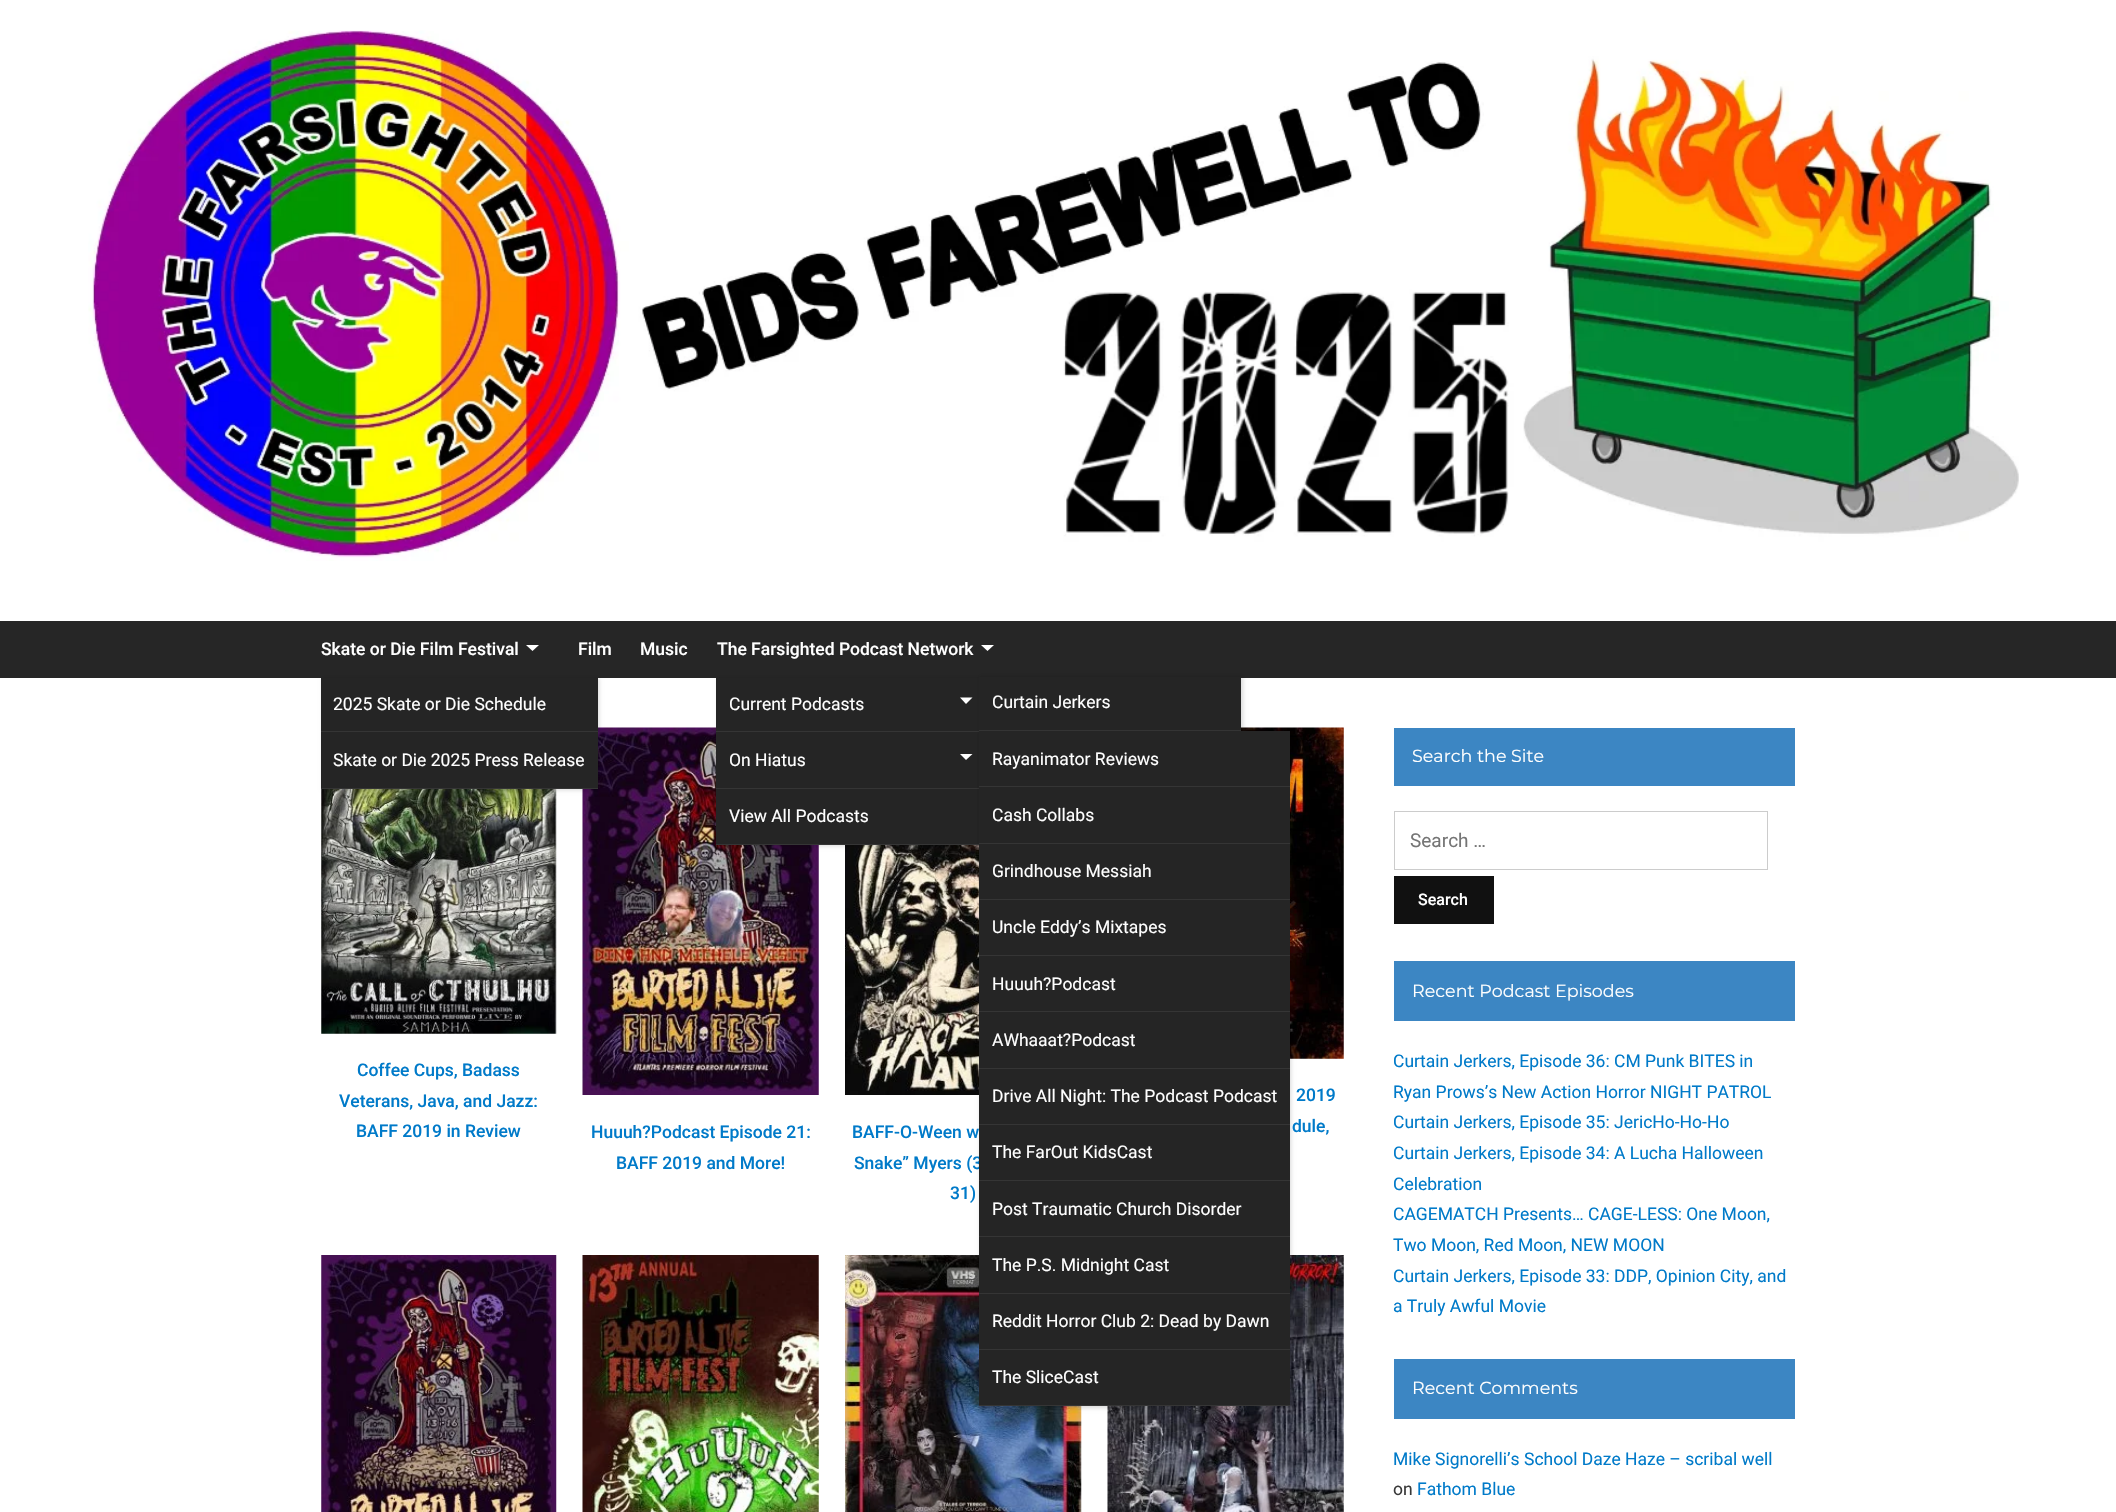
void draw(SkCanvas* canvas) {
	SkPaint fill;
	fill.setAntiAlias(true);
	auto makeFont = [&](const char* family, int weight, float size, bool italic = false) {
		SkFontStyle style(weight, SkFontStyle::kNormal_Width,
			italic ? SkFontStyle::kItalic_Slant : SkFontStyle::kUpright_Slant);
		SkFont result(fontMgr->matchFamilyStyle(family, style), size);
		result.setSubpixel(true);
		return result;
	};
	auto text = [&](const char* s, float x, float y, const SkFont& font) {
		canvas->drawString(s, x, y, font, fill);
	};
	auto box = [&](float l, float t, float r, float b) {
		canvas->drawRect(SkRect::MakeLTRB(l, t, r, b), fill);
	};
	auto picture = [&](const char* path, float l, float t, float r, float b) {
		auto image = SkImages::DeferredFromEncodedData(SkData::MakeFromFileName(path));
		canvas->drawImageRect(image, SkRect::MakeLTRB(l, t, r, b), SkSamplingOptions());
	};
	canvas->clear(0xFFFFFFFF);
	picture("image0.png", 88, 30, 2019, 561);
	fill.setColor(0xFF262626);
	box(0, 621, 2116, 678);
	fill.setColor(0xFFFFFFFF);
	canvas->drawPath(SkPathBuilder().moveTo(526, 645).lineTo(539, 645).lineTo(532.5f, 651).close().detach(), fill);
	picture("image1.png", 321, 789, 557, 1034);
	picture("image3.png", 582, 727, 819, 1095);
	fill.setColor(0x26000000);
	fill.setMaskFilter(SkMaskFilter::MakeBlur(kNormal_SkBlurStyle, 2));
	canvas->drawRect(SkRect::MakeLTRB(323, 678, 599, 790), fill);
	fill.setMaskFilter(nullptr);
	fill.setColor(0xFF252525);
	box(321, 678, 598, 788);
	fill.setColor(0xFF353535);
	box(321, 731, 598, 732);
	box(321, 788, 598, 789);
	fill.setColor(0xFFFFFFFF);
	canvas->drawPath(SkPathBuilder().moveTo(981, 645).lineTo(994, 645).lineTo(987.5f, 651).close().detach(), fill);
	picture("image4.png", 845, 845, 979, 1095);
	fill.setColor(0x26000000);
	fill.setMaskFilter(SkMaskFilter::MakeBlur(kNormal_SkBlurStyle, 2));
	canvas->drawRect(SkRect::MakeLTRB(718, 678, 980, 846), fill);
	fill.setMaskFilter(nullptr);
	fill.setColor(0xFF252525);
	box(716, 678, 979, 788);
	fill.setColor(0xFF353535);
	box(716, 731, 979, 732);
	fill.setColor(0xFFFFFFFF);
	canvas->drawPath(SkPathBuilder().moveTo(960, 697.5f).lineTo(972.5f, 697.5f).lineTo(966, 704).close().detach(), fill);
	fill.setColor(0xFF353535);
	box(716, 788, 979, 789);
	fill.setColor(0xFF252525);
	box(716, 789, 979, 844);
	fill.setColor(0xFF353535);
	box(716, 844, 979, 845);
	picture("image2.png", 1241, 727, 1344, 1059);
	fill.setColor(0x26000000);
	fill.setMaskFilter(SkMaskFilter::MakeBlur(kNormal_SkBlurStyle, 2));
	canvas->drawRect(SkRect::MakeLTRB(980, 676, 1243, 845), fill);
	fill.setMaskFilter(nullptr);
	fill.setColor(0xFF252525);
	box(979, 677, 1241, 730);
	fill.setColor(0xFF353535);
	box(979, 730, 1241, 731);
	fill.setColor(0xFFFFFFFF);
	canvas->drawPath(SkPathBuilder().moveTo(960, 754).lineTo(972.5f, 754).lineTo(966, 760).close().detach(), fill);
	picture("image7.png", 845, 1255, 1082, 1512);
	picture("image8.png", 1107, 1255, 1344, 1512);
	fill.setColor(0x26000000);
	fill.setMaskFilter(SkMaskFilter::MakeBlur(kNormal_SkBlurStyle, 2));
	canvas->drawRect(SkRect::MakeLTRB(980, 733, 1291, 1408), fill);
	fill.setMaskFilter(nullptr);
	fill.setColor(0xFF252525);
	box(979, 731, 1290, 843);
	fill.setColor(0xFF353535);
	box(979, 786, 1290, 787);
	box(979, 843, 1290, 844);
	fill.setColor(0xFF252525);
	box(979, 844, 1290, 899);
	fill.setColor(0xFF353535);
	box(979, 899, 1290, 900);
	fill.setColor(0xFF252525);
	box(979, 900, 1290, 955);
	fill.setColor(0xFF353535);
	box(979, 955, 1290, 956);
	fill.setColor(0xFF252525);
	box(979, 956, 1290, 1068);
	fill.setColor(0xFF353535);
	box(979, 1011, 1290, 1012);
	box(979, 1068, 1290, 1069);
	fill.setColor(0xFF252525);
	box(979, 1069, 1290, 1124);
	fill.setColor(0xFF353535);
	box(979, 1124, 1290, 1125);
	box(979, 1180, 1290, 1181);
	fill.setColor(0xFF252525);
	box(979, 1181, 1290, 1293);
	fill.setColor(0xFF353535);
	box(979, 1236, 1290, 1237);
	box(979, 1293, 1290, 1294);
	fill.setColor(0xFF252525);
	box(979, 1294, 1290, 1349);
	fill.setColor(0xFF353535);
	box(979, 1349, 1290, 1350);
	fill.setColor(0xFF252525);
	box(979, 1350, 1290, 1405);
	fill.setColor(0xFF353535);
	box(979, 1405, 1290, 1406);
	picture("image5.png", 321, 1255, 557, 1512);
	picture("image6.png", 582, 1255, 819, 1512);
	fill.setColor(0xFF3C86C3);
	box(1394, 728, 1795, 786);
	fill.setStyle(SkPaint::kStroke_Style);
	fill.setStrokeWidth(1);
	fill.setColor(0xFFCCCCCC);
	canvas->drawRect(SkRect::MakeLTRB(1394.5f, 811.5f, 1767.5f, 869.5f), fill);
	fill.setStyle(SkPaint::kFill_Style);
	fill.setColor(0xFF111111);
	box(1394, 876, 1494, 924);
	fill.setColor(0xFF3C86C3);
	box(1394, 961, 1795, 1021);
	box(1394, 1359, 1795, 1419);
	auto font1 = makeFont("Roboto", 500, 17.5f);
	fill.setColor(0xFFFFFFFF);
	text("Skate or Die Film Festival", 321, 655, font1);
	auto font2 = makeFont("Roboto", 400, 17.5f);
	text("2025 Skate or Die Schedule", 333, 710, font2);
	text("Skate or Die 2025 Press Release", 333, 766, font2);
	text("Film", 578, 655, font1);
	text("Music", 640, 655, font1);
	text("The Farsighted Podcast Network", 717, 655, font1);
	text("Current Podcasts", 729, 710, font2);
	text("Curtain Jerkers", 992, 708, font2);
	text("On Hiatus", 729, 766, font2);
	text("Rayanimator Reviews", 992, 765, font2);
	text("Cash Collabs", 992, 821, font2);
	text("Grindhouse Messiah", 992, 877, font2);
	text("Uncle Eddy’s Mixtapes", 992, 933, font2);
	text("Huuuh?Podcast", 992, 990, font2);
	text("AWhaaat?Podcast", 992, 1046, font2);
	text("Drive All Night: The Podcast Podcast", 992, 1102, font2);
	text("Post Traumatic Church Disorder", 992, 1215, font2);
	text("The P.S. Midnight Cast", 992, 1271, font2);
	text("Reddit Horror Club 2: Dead by Dawn", 992, 1327, font2);
	text("The SliceCast", 992, 1383, font2);
	text("View All Podcasts", 729, 822, font2);
	fill.setColor(0xFF007AC9);
	text("Coffee Cups, Badass", 357, 1076, font1);
	text("Veterans, Java, and Jazz:", 339, 1107, font1);
	text("BAFF 2019 in Review", 356, 1137, font1);
	text("2019", 1296, 1101, font1);
	text("dule,", 1292, 1132, font1);
	text("Huuuh?Podcast Episode 21:", 591, 1138, font1);
	text("BAFF 2019 and More!", 616, 1169, font1);
	text("BAFF-O-Ween w", 852, 1138, font1);
	text("Snake” Myers (3", 854, 1169, font1);
	fill.setColor(0xFF252525);
	box(979, 1125, 1290, 1180);
	fill.setColor(0xFFFFFFFF);
	text("The FarOut KidsCast", 992, 1158, font2);
	fill.setColor(0xFF007AC9);
	text("31)", 950, 1199, font1);
	auto font3 = makeFont("Montserrat", 400, 17.5f);
	fill.setColor(0xFFFFFFFF);
	text("Search the Site", 1412, 762, font3);
	auto font4 = makeFont("Roboto", 400, 19);
	fill.setColor(0xFF757575);
	text("Search …", 1410, 847, font4);
	auto font5 = makeFont("Roboto", 500, 16);
	fill.setColor(0xFFFFFFFF);
	text("Search", 1418, 905, font5);
	text("Recent Podcast Episodes", 1412, 997, font3);
	fill.setColor(0xFF007AC9);
	text("Curtain Jerkers, Episode 36: CM Punk BITES in", 1393, 1067, font2);
	text("Ryan Prows’s New Action Horror NIGHT PATROL", 1393, 1098, font2);
	text("Curtain Jerkers, Episode 35: JericHo-Ho-Ho", 1393, 1128, font2);
	text("Curtain Jerkers, Episode 34: A Lucha Halloween", 1393, 1159, font2);
	text("Celebration", 1393, 1190, font2);
	text("CAGEMATCH Presents… CAGE-LESS: One Moon,", 1393, 1220, font2);
	text("Two Moon, Red Moon, NEW MOON", 1393, 1251, font2);
	text("Curtain Jerkers, Episode 33: DDP, Opinion City, and", 1393, 1282, font2);
	text("a Truly Awful Movie", 1393, 1312, font2);
	fill.setColor(0xFFFFFFFF);
	text("Recent Comments", 1412, 1394, font3);
	fill.setColor(0xFF007AC9);
	text("Mike Signorelli’s School Daze Haze – scribal well", 1393, 1465, font2);
	fill.setColor(0xFF393939);
	text("on", 1393, 1495, font2);
	fill.setColor(0xFF007AC9);
	text("Fathom Blue", 1417, 1495, font2);
}
